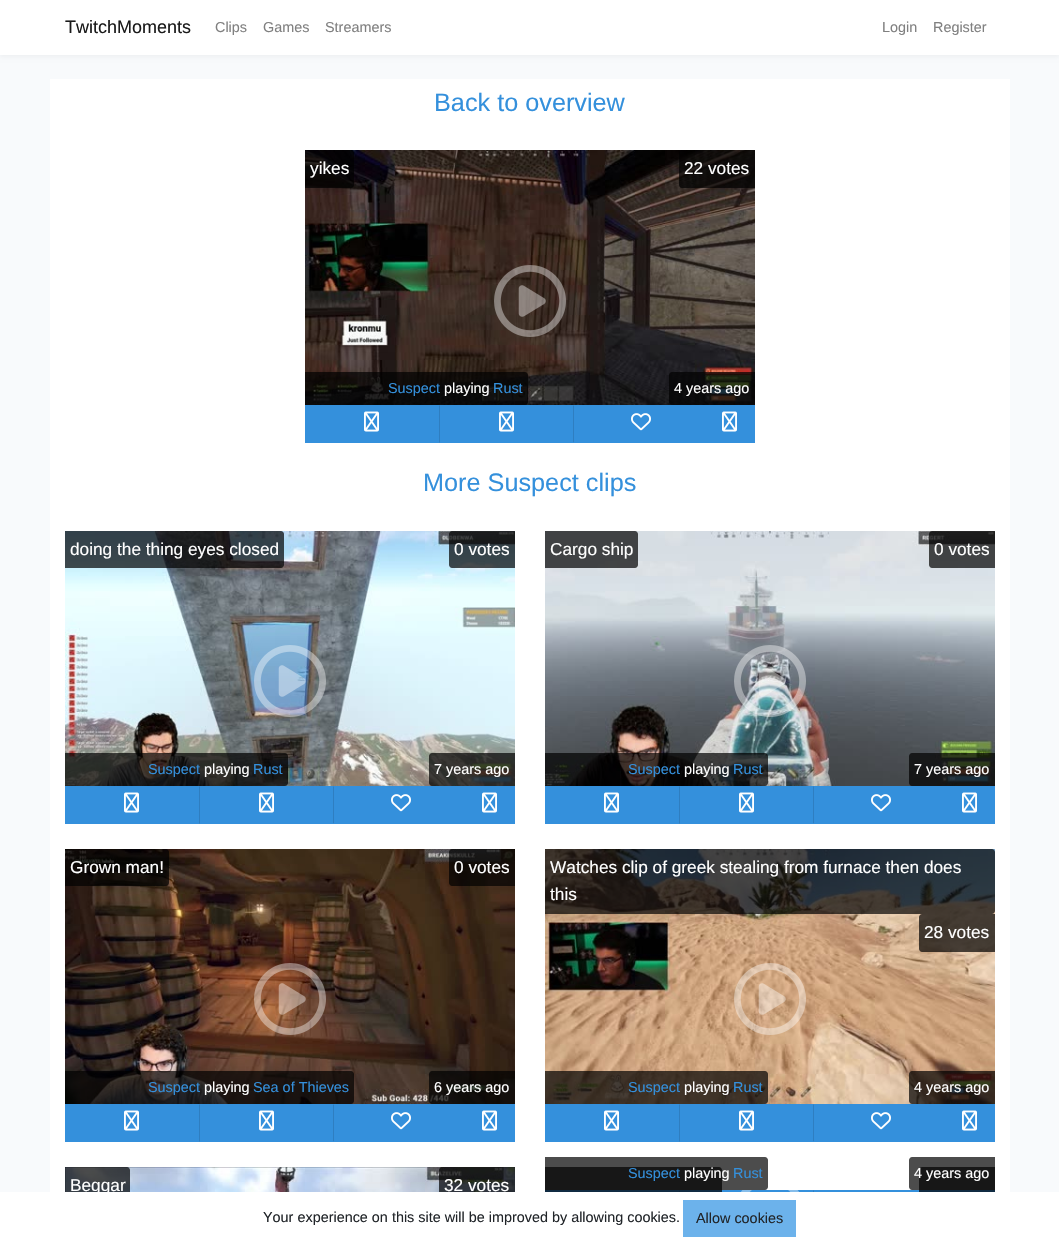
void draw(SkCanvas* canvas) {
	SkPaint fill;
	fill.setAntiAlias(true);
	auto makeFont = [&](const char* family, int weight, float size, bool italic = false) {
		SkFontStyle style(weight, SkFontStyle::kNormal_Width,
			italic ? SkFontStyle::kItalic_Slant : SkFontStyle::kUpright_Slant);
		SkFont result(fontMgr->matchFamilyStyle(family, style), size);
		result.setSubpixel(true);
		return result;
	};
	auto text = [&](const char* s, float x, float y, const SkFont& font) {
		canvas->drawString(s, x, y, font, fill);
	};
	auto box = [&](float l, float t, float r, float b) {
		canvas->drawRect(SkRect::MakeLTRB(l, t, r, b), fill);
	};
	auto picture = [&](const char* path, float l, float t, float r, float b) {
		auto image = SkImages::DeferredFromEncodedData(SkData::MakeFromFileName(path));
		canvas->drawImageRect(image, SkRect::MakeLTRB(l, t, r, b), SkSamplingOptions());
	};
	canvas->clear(0xFFF8FAFC);
	fill.setColor(0x0A000000);
	fill.setMaskFilter(SkMaskFilter::MakeBlur(kNormal_SkBlurStyle, 2));
	canvas->drawRect(SkRect::MakeLTRB(0, 2, 1059, 57), fill);
	fill.setMaskFilter(nullptr);
	fill.setColor(0xFFFFFFFF);
	box(0, 0, 1059, 55);
	box(50, 79, 1010, 1192);
	picture("image0.png", 305, 150, 755, 405);
	fill.setColor(0xB3000000);
	canvas->drawPath(SkPathBuilder().moveTo(305, 150).lineTo(351, 150).cubicTo(352.5f, 150, 354, 151.5f, 354, 153).lineTo(354, 185).cubicTo(354, 186.5f, 352.5f, 188, 351, 188).lineTo(305, 188).close().detach(), fill);
	canvas->drawPath(SkPathBuilder().moveTo(682, 150).lineTo(755, 150).lineTo(755, 188).lineTo(682, 188).cubicTo(680.5f, 188, 679, 186.5f, 679, 185).lineTo(679, 153).cubicTo(679, 151.5f, 680.5f, 150, 682, 150).close().detach(), fill);
	picture("image1.png", 494, 265, 566, 337);
	canvas->drawPath(SkPathBuilder().moveTo(305, 372).lineTo(525, 372).cubicTo(526.5f, 372, 528, 373.5f, 528, 375).lineTo(528, 402).cubicTo(528, 403.5f, 526.5f, 405, 525, 405).lineTo(305, 405).close().detach(), fill);
	canvas->drawPath(SkPathBuilder().moveTo(672, 372).lineTo(755, 372).lineTo(755, 405).lineTo(672, 405).cubicTo(670.5f, 405, 669, 403.5f, 669, 402).lineTo(669, 375).cubicTo(669, 373.5f, 670.5f, 372, 672, 372).close().detach(), fill);
	fill.setColor(0xFF3490DC);
	box(305, 405, 755, 443);
	picture("image2.png", 364, 411, 379, 432);
	fill.setColor(0xFF2E7EC1);
	canvas->drawPath(SkPathBuilder().moveTo(574, 405).lineTo(574, 443).lineTo(573, 442).lineTo(573, 406).close().detach(), fill);
	fill.setColor(0xFF3490DC);
	canvas->drawPath(SkPathBuilder().moveTo(574, 443).lineTo(439, 443).lineTo(440, 442).lineTo(573, 442).close().detach(), fill);
	fill.setColor(0xFF2E7EC1);
	canvas->drawPath(SkPathBuilder().moveTo(439, 443).lineTo(439, 405).lineTo(440, 406).lineTo(440, 442).close().detach(), fill);
	picture("image2.png", 499, 411, 514, 432);
	picture("image3.png", 631, 413, 651, 431);
	picture("image2.png", 722, 411, 737, 432);
	picture("image4.png", 65, 531, 515, 786);
	fill.setColor(0xB3000000);
	canvas->drawPath(SkPathBuilder().moveTo(65, 531).lineTo(281, 531).cubicTo(282.5f, 531, 284, 532.5f, 284, 534).lineTo(284, 565).cubicTo(284, 566.5f, 282.5f, 568, 281, 568).lineTo(65, 568).close().detach(), fill);
	canvas->drawPath(SkPathBuilder().moveTo(452, 531).lineTo(515, 531).lineTo(515, 568).lineTo(452, 568).cubicTo(450.5f, 568, 449, 566.5f, 449, 565).lineTo(449, 534).cubicTo(449, 532.5f, 450.5f, 531, 452, 531).close().detach(), fill);
	picture("image5.png", 254, 645, 326, 717);
	canvas->drawPath(SkPathBuilder().moveTo(65, 753).lineTo(285, 753).cubicTo(286.5f, 753, 288, 754.5f, 288, 756).lineTo(288, 783).cubicTo(288, 784.5f, 286.5f, 786, 285, 786).lineTo(65, 786).close().detach(), fill);
	canvas->drawPath(SkPathBuilder().moveTo(432, 753).lineTo(515, 753).lineTo(515, 786).lineTo(432, 786).cubicTo(430.5f, 786, 429, 784.5f, 429, 783).lineTo(429, 756).cubicTo(429, 754.5f, 430.5f, 753, 432, 753).close().detach(), fill);
	fill.setColor(0xFF3490DC);
	box(65, 786, 515, 824);
	picture("image2.png", 124, 792, 139, 813);
	fill.setColor(0xFF2E7EC1);
	canvas->drawPath(SkPathBuilder().moveTo(334, 786).lineTo(334, 824).lineTo(333, 823).lineTo(333, 787).close().detach(), fill);
	fill.setColor(0xFF3490DC);
	canvas->drawPath(SkPathBuilder().moveTo(334, 824).lineTo(199, 824).lineTo(200, 823).lineTo(333, 823).close().detach(), fill);
	fill.setColor(0xFF2E7EC1);
	canvas->drawPath(SkPathBuilder().moveTo(199, 824).lineTo(199, 786).lineTo(200, 787).lineTo(200, 823).close().detach(), fill);
	picture("image2.png", 259, 792, 274, 813);
	picture("image3.png", 391, 794, 411, 812);
	picture("image2.png", 482, 792, 497, 813);
	picture("image6.png", 545, 531, 995, 786);
	fill.setColor(0xB3000000);
	canvas->drawPath(SkPathBuilder().moveTo(545, 531).lineTo(635, 531).cubicTo(636.5f, 531, 638, 532.5f, 638, 534).lineTo(638, 565).cubicTo(638, 566.5f, 636.5f, 568, 635, 568).lineTo(545, 568).close().detach(), fill);
	canvas->drawPath(SkPathBuilder().moveTo(932, 531).lineTo(995, 531).lineTo(995, 568).lineTo(932, 568).cubicTo(930.5f, 568, 929, 566.5f, 929, 565).lineTo(929, 534).cubicTo(929, 532.5f, 930.5f, 531, 932, 531).close().detach(), fill);
	picture("image7.png", 734, 645, 806, 717);
	canvas->drawPath(SkPathBuilder().moveTo(545, 753).lineTo(765, 753).cubicTo(766.5f, 753, 768, 754.5f, 768, 756).lineTo(768, 783).cubicTo(768, 784.5f, 766.5f, 786, 765, 786).lineTo(545, 786).close().detach(), fill);
	canvas->drawPath(SkPathBuilder().moveTo(912, 753).lineTo(995, 753).lineTo(995, 786).lineTo(912, 786).cubicTo(910.5f, 786, 909, 784.5f, 909, 783).lineTo(909, 756).cubicTo(909, 754.5f, 910.5f, 753, 912, 753).close().detach(), fill);
	fill.setColor(0xFF3490DC);
	box(545, 786, 995, 824);
	picture("image2.png", 604, 792, 619, 813);
	fill.setColor(0xFF2E7EC1);
	canvas->drawPath(SkPathBuilder().moveTo(814, 786).lineTo(814, 824).lineTo(813, 823).lineTo(813, 787).close().detach(), fill);
	fill.setColor(0xFF3490DC);
	canvas->drawPath(SkPathBuilder().moveTo(814, 824).lineTo(679, 824).lineTo(680, 823).lineTo(813, 823).close().detach(), fill);
	fill.setColor(0xFF2E7EC1);
	canvas->drawPath(SkPathBuilder().moveTo(679, 824).lineTo(679, 786).lineTo(680, 787).lineTo(680, 823).close().detach(), fill);
	picture("image2.png", 739, 792, 754, 813);
	picture("image3.png", 871, 794, 891, 812);
	picture("image2.png", 962, 792, 977, 813);
	picture("image8.png", 65, 849, 515, 1104);
	fill.setColor(0xB3000000);
	canvas->drawPath(SkPathBuilder().moveTo(65, 849).lineTo(166, 849).cubicTo(167.5f, 849, 169, 850.5f, 169, 852).lineTo(169, 883).cubicTo(169, 884.5f, 167.5f, 886, 166, 886).lineTo(65, 886).close().detach(), fill);
	canvas->drawPath(SkPathBuilder().moveTo(452, 849).lineTo(515, 849).lineTo(515, 886).lineTo(452, 886).cubicTo(450.5f, 886, 449, 884.5f, 449, 883).lineTo(449, 852).cubicTo(449, 850.5f, 450.5f, 849, 452, 849).close().detach(), fill);
	picture("image9.png", 254, 963, 326, 1035);
	canvas->drawPath(SkPathBuilder().moveTo(65, 1071).lineTo(351, 1071).cubicTo(352.5f, 1071, 354, 1072.5f, 354, 1074).lineTo(354, 1101).cubicTo(354, 1102.5f, 352.5f, 1104, 351, 1104).lineTo(65, 1104).close().detach(), fill);
	canvas->drawPath(SkPathBuilder().moveTo(432, 1071).lineTo(515, 1071).lineTo(515, 1104).lineTo(432, 1104).cubicTo(430.5f, 1104, 429, 1102.5f, 429, 1101).lineTo(429, 1074).cubicTo(429, 1072.5f, 430.5f, 1071, 432, 1071).close().detach(), fill);
	fill.setColor(0xFF3490DC);
	box(65, 1104, 515, 1142);
	picture("image2.png", 124, 1110, 139, 1131);
	fill.setColor(0xFF2E7EC1);
	canvas->drawPath(SkPathBuilder().moveTo(334, 1104).lineTo(334, 1142).lineTo(333, 1141).lineTo(333, 1105).close().detach(), fill);
	fill.setColor(0xFF3490DC);
	canvas->drawPath(SkPathBuilder().moveTo(334, 1142).lineTo(199, 1142).lineTo(200, 1141).lineTo(333, 1141).close().detach(), fill);
	fill.setColor(0xFF2E7EC1);
	canvas->drawPath(SkPathBuilder().moveTo(199, 1142).lineTo(199, 1104).lineTo(200, 1105).lineTo(200, 1141).close().detach(), fill);
	picture("image2.png", 259, 1110, 274, 1131);
	picture("image3.png", 391, 1112, 411, 1130);
	picture("image2.png", 482, 1110, 497, 1131);
	picture("image10.png", 545, 849, 995, 1104);
	fill.setColor(0xB3000000);
	canvas->drawPath(SkPathBuilder().moveTo(545, 849).lineTo(992, 849).cubicTo(993.5f, 849, 995, 850.5f, 995, 852).lineTo(995, 911).cubicTo(995, 912.5f, 993.5f, 914, 992, 914).lineTo(545, 914).close().detach(), fill);
	canvas->drawPath(SkPathBuilder().moveTo(922, 914).lineTo(995, 914).lineTo(995, 952).lineTo(922, 952).cubicTo(920.5f, 952, 919, 950.5f, 919, 949).lineTo(919, 917).cubicTo(919, 915.5f, 920.5f, 914, 922, 914).close().detach(), fill);
	picture("image11.png", 734, 963, 806, 1035);
	canvas->drawPath(SkPathBuilder().moveTo(545, 1071).lineTo(765, 1071).cubicTo(766.5f, 1071, 768, 1072.5f, 768, 1074).lineTo(768, 1101).cubicTo(768, 1102.5f, 766.5f, 1104, 765, 1104).lineTo(545, 1104).close().detach(), fill);
	canvas->drawPath(SkPathBuilder().moveTo(912, 1071).lineTo(995, 1071).lineTo(995, 1104).lineTo(912, 1104).cubicTo(910.5f, 1104, 909, 1102.5f, 909, 1101).lineTo(909, 1074).cubicTo(909, 1072.5f, 910.5f, 1071, 912, 1071).close().detach(), fill);
	fill.setColor(0xFF3490DC);
	box(545, 1104, 995, 1142);
	picture("image2.png", 604, 1110, 619, 1131);
	fill.setColor(0xFF2E7EC1);
	canvas->drawPath(SkPathBuilder().moveTo(814, 1104).lineTo(814, 1142).lineTo(813, 1141).lineTo(813, 1105).close().detach(), fill);
	fill.setColor(0xFF3490DC);
	canvas->drawPath(SkPathBuilder().moveTo(814, 1142).lineTo(679, 1142).lineTo(680, 1141).lineTo(813, 1141).close().detach(), fill);
	fill.setColor(0xFF2E7EC1);
	canvas->drawPath(SkPathBuilder().moveTo(679, 1142).lineTo(679, 1104).lineTo(680, 1105).lineTo(680, 1141).close().detach(), fill);
	picture("image2.png", 739, 1110, 754, 1131);
	picture("image3.png", 871, 1112, 891, 1130);
	picture("image2.png", 962, 1110, 977, 1131);
	fill.setColor(0xFF3490DC);
	box(545, 1190, 995, 1192);
	fill.setColor(0xFF2E7EC1);
	canvas->drawPath(SkPathBuilder().moveTo(679, 1228).lineTo(679, 1190).lineTo(680, 1191).lineTo(680, 1227).close().detach(), fill);
	fill.setColor(0xB3000000);
	canvas->drawPath(SkPathBuilder().moveTo(545, 1167).lineTo(719, 1167).cubicTo(720.5f, 1167, 722, 1168.5f, 722, 1170).lineTo(722, 1201).cubicTo(722, 1202.5f, 720.5f, 1204, 719, 1204).lineTo(545, 1204).close().detach(), fill);
	canvas->drawPath(SkPathBuilder().moveTo(922, 1167).lineTo(995, 1167).lineTo(995, 1204).lineTo(922, 1204).cubicTo(920.5f, 1204, 919, 1202.5f, 919, 1201).lineTo(919, 1170).cubicTo(919, 1168.5f, 920.5f, 1167, 922, 1167).close().detach(), fill);
	canvas->drawPath(SkPathBuilder().moveTo(545, 1157).lineTo(765, 1157).cubicTo(766.5f, 1157, 768, 1158.5f, 768, 1160).lineTo(768, 1187).cubicTo(768, 1188.5f, 766.5f, 1190, 765, 1190).lineTo(545, 1190).close().detach(), fill);
	canvas->drawPath(SkPathBuilder().moveTo(912, 1157).lineTo(995, 1157).lineTo(995, 1190).lineTo(912, 1190).cubicTo(910.5f, 1190, 909, 1188.5f, 909, 1187).lineTo(909, 1160).cubicTo(909, 1158.5f, 910.5f, 1157, 912, 1157).close().detach(), fill);
	picture("image12.png", 741, 1190, 799, 1192);
	fill.setColor(0xFF2E7EC1);
	canvas->drawPath(SkPathBuilder().moveTo(814, 1190).lineTo(814, 1228).lineTo(813, 1227).lineTo(813, 1191).close().detach(), fill);
	picture("image13.png", 65, 1167, 515, 1192);
	fill.setColor(0xB3000000);
	canvas->drawPath(SkPathBuilder().moveTo(65, 1167).lineTo(127, 1167).cubicTo(128.5f, 1167, 130, 1168.5f, 130, 1170).lineTo(130, 1201).cubicTo(130, 1202.5f, 128.5f, 1204, 127, 1204).lineTo(65, 1204).close().detach(), fill);
	canvas->drawPath(SkPathBuilder().moveTo(442, 1167).lineTo(515, 1167).lineTo(515, 1204).lineTo(442, 1204).cubicTo(440.5f, 1204, 439, 1202.5f, 439, 1201).lineTo(439, 1170).cubicTo(439, 1168.5f, 440.5f, 1167, 442, 1167).close().detach(), fill);
	fill.setColor(0xFFFFFFFF);
	box(0, 1192, 1059, 1245);
	fill.setColor(0xFF6CB2EB);
	box(683, 1200, 796, 1237);
	auto font1 = makeFont("Liberation Sans", 400, 18);
	fill.setColor(0xFF1A1A1A);
	text("TwitchMoments", 65, 33, font1);
	auto font2 = makeFont("Liberation Sans", 400, 14.4f);
	fill.setColor(0xFF808080);
	text("Clips", 215, 32, font2);
	text("Games", 263, 32, font2);
	text("Streamers", 325, 32, font2);
	text("Login", 882, 32, font2);
	text("Register", 933, 32, font2);
	auto font3 = makeFont("Liberation Sans", 400, 25.25f);
	fill.setColor(0xFF3490DC);
	text("Back to overview", 434, 111, font3);
	auto font4 = makeFont("Liberation Sans", 400, 17.25f);
	fill.setColor(0xFFFFFFFF);
	text("yikes", 310, 174, font4);
	text("22 votes", 684, 174, font4);
	fill.setColor(0xFF3490DC);
	text("Suspect", 388, 393, font2);
	fill.setColor(0xFFFFFFFF);
	text("playing", 444, 393, font2);
	fill.setColor(0xFF3490DC);
	text("Rust", 493, 393, font2);
	fill.setColor(0xFFFFFFFF);
	text("4 years ago", 674, 393, font2);
	fill.setColor(0xFF3490DC);
	text("More Suspect clips", 423, 491, font3);
	fill.setColor(0xFFFFFFFF);
	text("doing the thing eyes closed", 70, 555, font4);
	text("0 votes", 454, 555, font4);
	fill.setColor(0xFF3490DC);
	text("Suspect", 148, 774, font2);
	fill.setColor(0xFFFFFFFF);
	text("playing", 204, 774, font2);
	fill.setColor(0xFF3490DC);
	text("Rust", 253, 774, font2);
	fill.setColor(0xFFFFFFFF);
	text("7 years ago", 434, 774, font2);
	text("Cargo ship", 550, 555, font4);
	text("0 votes", 934, 555, font4);
	fill.setColor(0xFF3490DC);
	text("Suspect", 628, 774, font2);
	fill.setColor(0xFFFFFFFF);
	text("playing", 684, 774, font2);
	fill.setColor(0xFF3490DC);
	text("Rust", 733, 774, font2);
	fill.setColor(0xFFFFFFFF);
	text("7 years ago", 914, 774, font2);
	text("Grown man!", 70, 873, font4);
	text("0 votes", 454, 873, font4);
	fill.setColor(0xFF3490DC);
	text("Suspect", 148, 1092, font2);
	fill.setColor(0xFFFFFFFF);
	text("playing", 204, 1092, font2);
	fill.setColor(0xFF3490DC);
	text("Sea of Thieves", 253, 1092, font2);
	fill.setColor(0xFFFFFFFF);
	text("6 years ago", 434, 1092, font2);
	text("Watches clip of greek stealing from furnace then does", 550, 873, font4);
	text("this", 550, 900, font4);
	text("28 votes", 924, 938, font4);
	fill.setColor(0xFF3490DC);
	text("Suspect", 628, 1092, font2);
	fill.setColor(0xFFFFFFFF);
	text("playing", 684, 1092, font2);
	fill.setColor(0xFF3490DC);
	text("Rust", 733, 1092, font2);
	fill.setColor(0xFFFFFFFF);
	text("4 years ago", 914, 1092, font2);
	fill.setColor(0xFF3490DC);
	text("Suspect", 628, 1178, font2);
	fill.setColor(0xFFFFFFFF);
	text("playing", 684, 1178, font2);
	fill.setColor(0xFF3490DC);
	text("Rust", 733, 1178, font2);
	fill.setColor(0xFFFFFFFF);
	text("4 years ago", 914, 1178, font2);
	text("Beggar", 70, 1191, font4);
	text("32 votes", 444, 1191, font4);
	fill.setColor(0xFF212529);
	text("Your experience on this site will be improved by allowing cookies.", 263, 1222, font2);
	text("Allow cookies", 696, 1223, font2);
}
